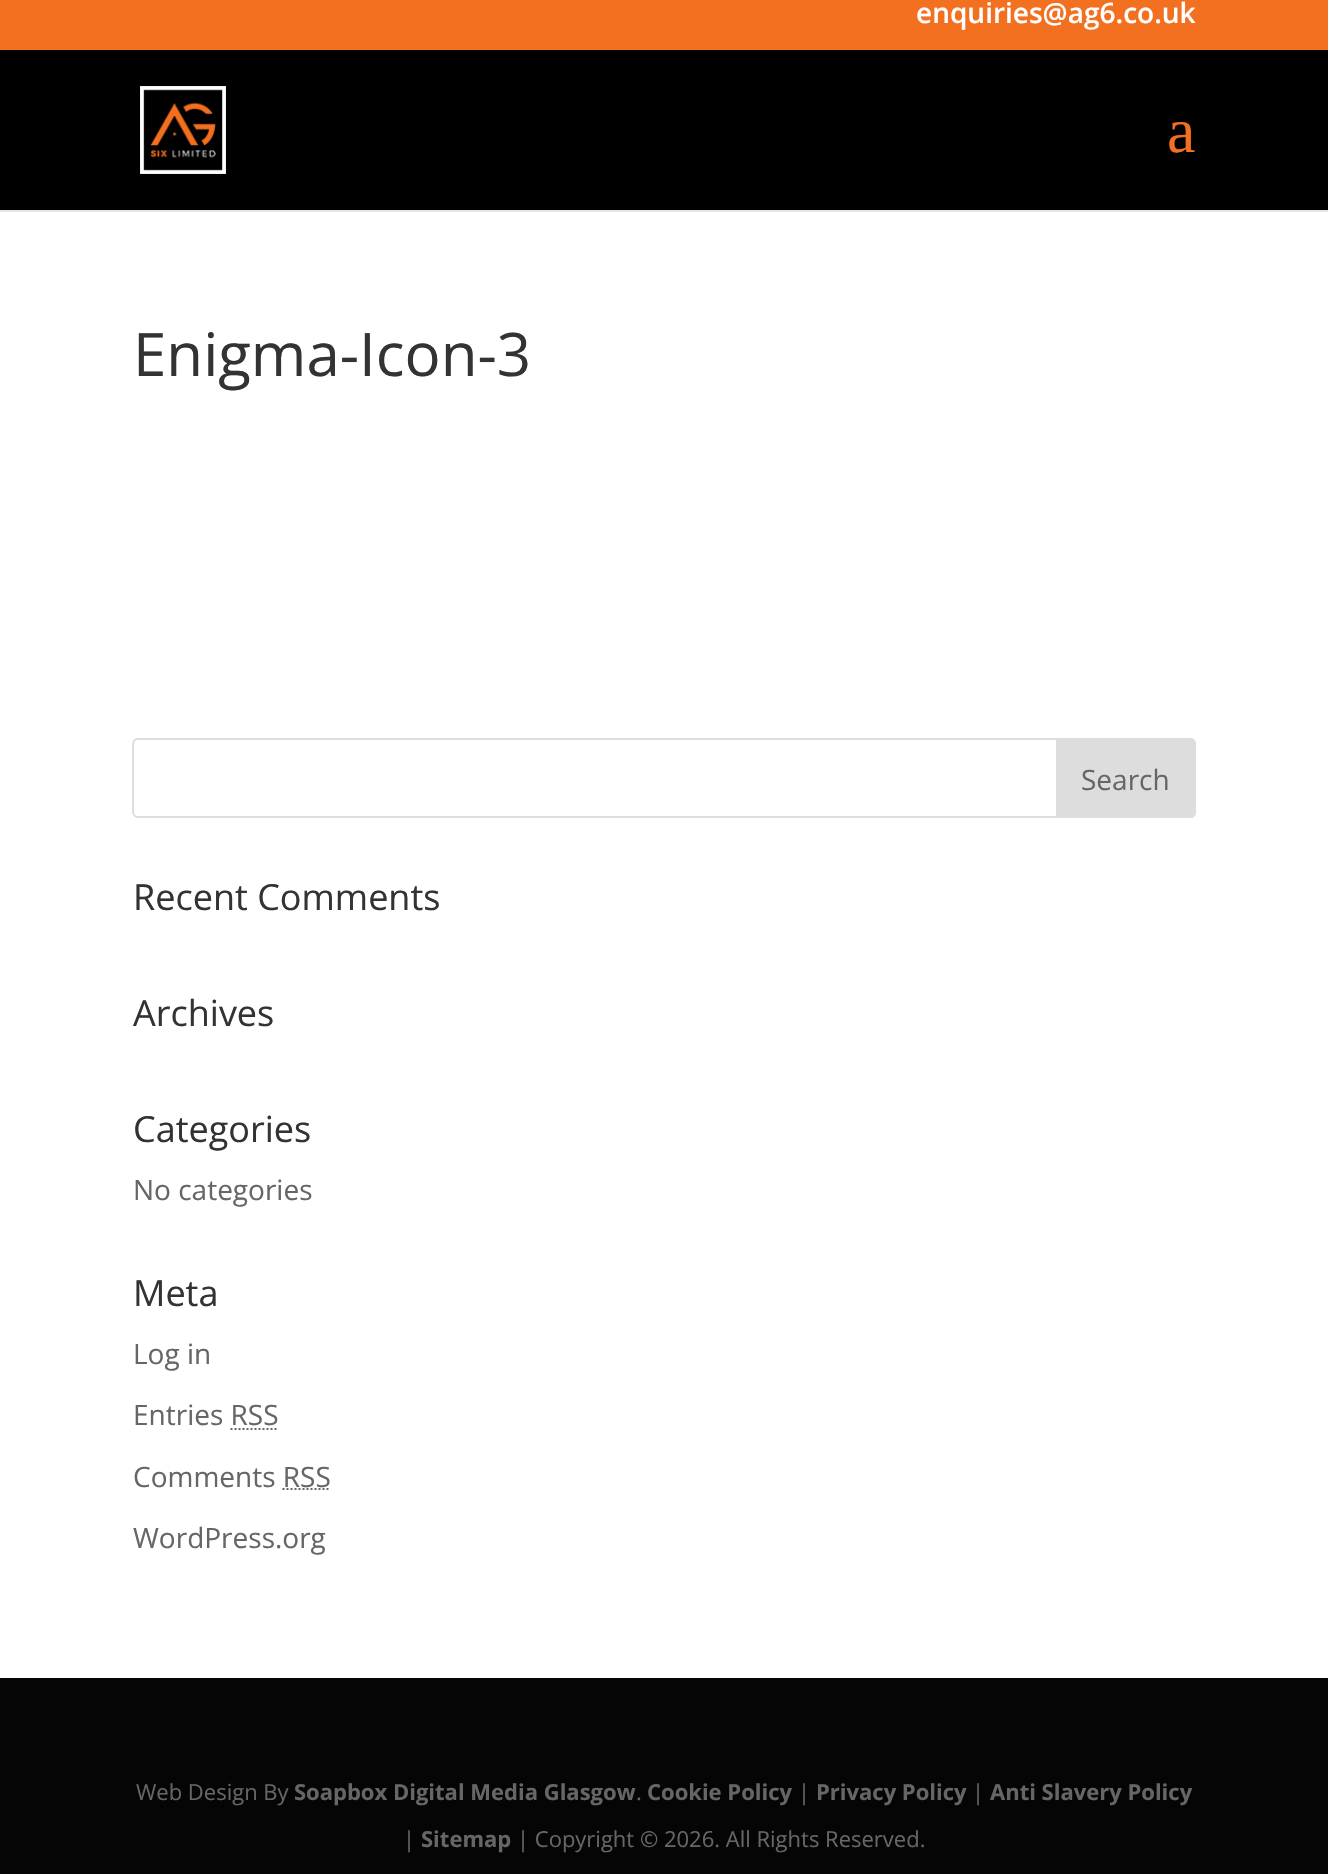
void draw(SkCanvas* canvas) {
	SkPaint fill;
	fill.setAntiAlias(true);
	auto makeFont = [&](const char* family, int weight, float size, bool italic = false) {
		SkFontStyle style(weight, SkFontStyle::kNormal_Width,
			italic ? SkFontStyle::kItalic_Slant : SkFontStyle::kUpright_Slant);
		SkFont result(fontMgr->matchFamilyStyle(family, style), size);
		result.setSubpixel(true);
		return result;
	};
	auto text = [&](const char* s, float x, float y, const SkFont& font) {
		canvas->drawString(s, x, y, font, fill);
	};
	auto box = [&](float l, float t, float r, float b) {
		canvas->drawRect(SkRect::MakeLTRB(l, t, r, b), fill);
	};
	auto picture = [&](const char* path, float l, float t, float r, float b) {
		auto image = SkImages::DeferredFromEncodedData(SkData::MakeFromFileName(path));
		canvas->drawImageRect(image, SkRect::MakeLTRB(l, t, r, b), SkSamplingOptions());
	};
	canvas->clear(0xFFFFFFFF);
	fill.setColor(0xFFF37021);
	box(0, 0, 1328, 50);
	fill.setColor(0xFFE6E6E6);
	box(0, 210, 1328, 212);
	fill.setColor(0xFF000000);
	box(0, 50, 1328, 210);
	picture("image0.png", 140, 86, 226, 174);
	fill.setStyle(SkPaint::kStroke_Style);
	fill.setStrokeWidth(2);
	fill.setColor(0xFFDDDDDD);
	canvas->drawRoundRect(SkRect::MakeLTRB(133, 739, 1195, 817), 5, 5, fill);
	fill.setStyle(SkPaint::kFill_Style);
	canvas->drawPath(SkPathBuilder().moveTo(1057, 739).lineTo(1190, 739).cubicTo(1193, 739, 1195, 741, 1195, 744).lineTo(1195, 812).cubicTo(1195, 815, 1193, 817, 1190, 817).lineTo(1057, 817).close().detach(), fill);
	fill.setStyle(SkPaint::kStroke_Style);
	canvas->drawPath(SkPathBuilder().moveTo(1057, 739).lineTo(1190, 739).cubicTo(1193, 739, 1195, 741, 1195, 744).lineTo(1195, 812).cubicTo(1195, 815, 1193, 817, 1190, 817).lineTo(1057, 817).close().detach(), fill);
	fill.setColor(0xFF666666);
	fill.setPathEffect(SkDashPathEffect::Make({{2, 2}}, 0));
	canvas->drawPath(SkPathBuilder().moveTo(230.5f, 1429).lineTo(278.5f, 1429).detach(), fill);
	fill.setPathEffect(nullptr);
	fill.setPathEffect(SkDashPathEffect::Make({{2, 2}}, 0));
	canvas->drawPath(SkPathBuilder().moveTo(282.5f, 1489).lineTo(330.5f, 1489).detach(), fill);
	fill.setPathEffect(nullptr);
	fill.setStyle(SkPaint::kFill_Style);
	fill.setColor(0xFF050505);
	box(0, 1678, 1328, 1874);
	auto font1 = makeFont("Open Sans", 600, 28);
	fill.setColor(0xFFFFFFFF);
	text("enquiries@ag6.co.uk", 916, 23, font1);
	auto font2 = makeFont("Liberation Serif", 400, 64);
	fill.setColor(0xFFF37021);
	text("a", 1167, 152, font2);
	auto font3 = makeFont("Open Sans", 400, 60);
	fill.setColor(0xFF333333);
	text("Enigma-Icon-3", 133, 376, font3);
	auto font4 = makeFont("Open Sans", 400, 28);
	fill.setColor(0xFF666666);
	text("Search", 1081, 790, font4);
	auto font5 = makeFont("Open Sans", 400, 36);
	fill.setColor(0xFF333333);
	text("Recent Comments", 133, 910, font5);
	text("Archives", 133, 1026, font5);
	text("Categories", 133, 1142, font5);
	fill.setColor(0xFF666666);
	text("No categories", 133, 1200, font4);
	fill.setColor(0xFF333333);
	text("Meta", 133, 1306, font5);
	fill.setColor(0xFF666666);
	text("Log in", 133, 1364, font4);
	text("Entries RSS", 133, 1425, font4);
	text("Comments RSS", 133, 1487, font4);
	text("WordPress.org", 133, 1548, font4);
	auto font6 = makeFont("Open Sans", 400, 22);
	text("Web Design By", 136, 1800, font6);
	auto font7 = makeFont("Open Sans", 700, 22);
	text("Soapbox Digital Media Glasgow", 294, 1800, font7);
	text(".", 636, 1800, font6);
	text("Cookie Policy", 647, 1800, font7);
	text("|", 798, 1800, font6);
	text("Privacy Policy", 816, 1800, font7);
	text("|", 972, 1800, font6);
	text("Anti Slavery Policy", 990, 1800, font7);
	text("|", 403, 1847, font6);
	text("Sitemap", 421, 1847, font7);
	text("| Copyright © 2026. All Rights Reserved.", 517, 1847, font6);
}
